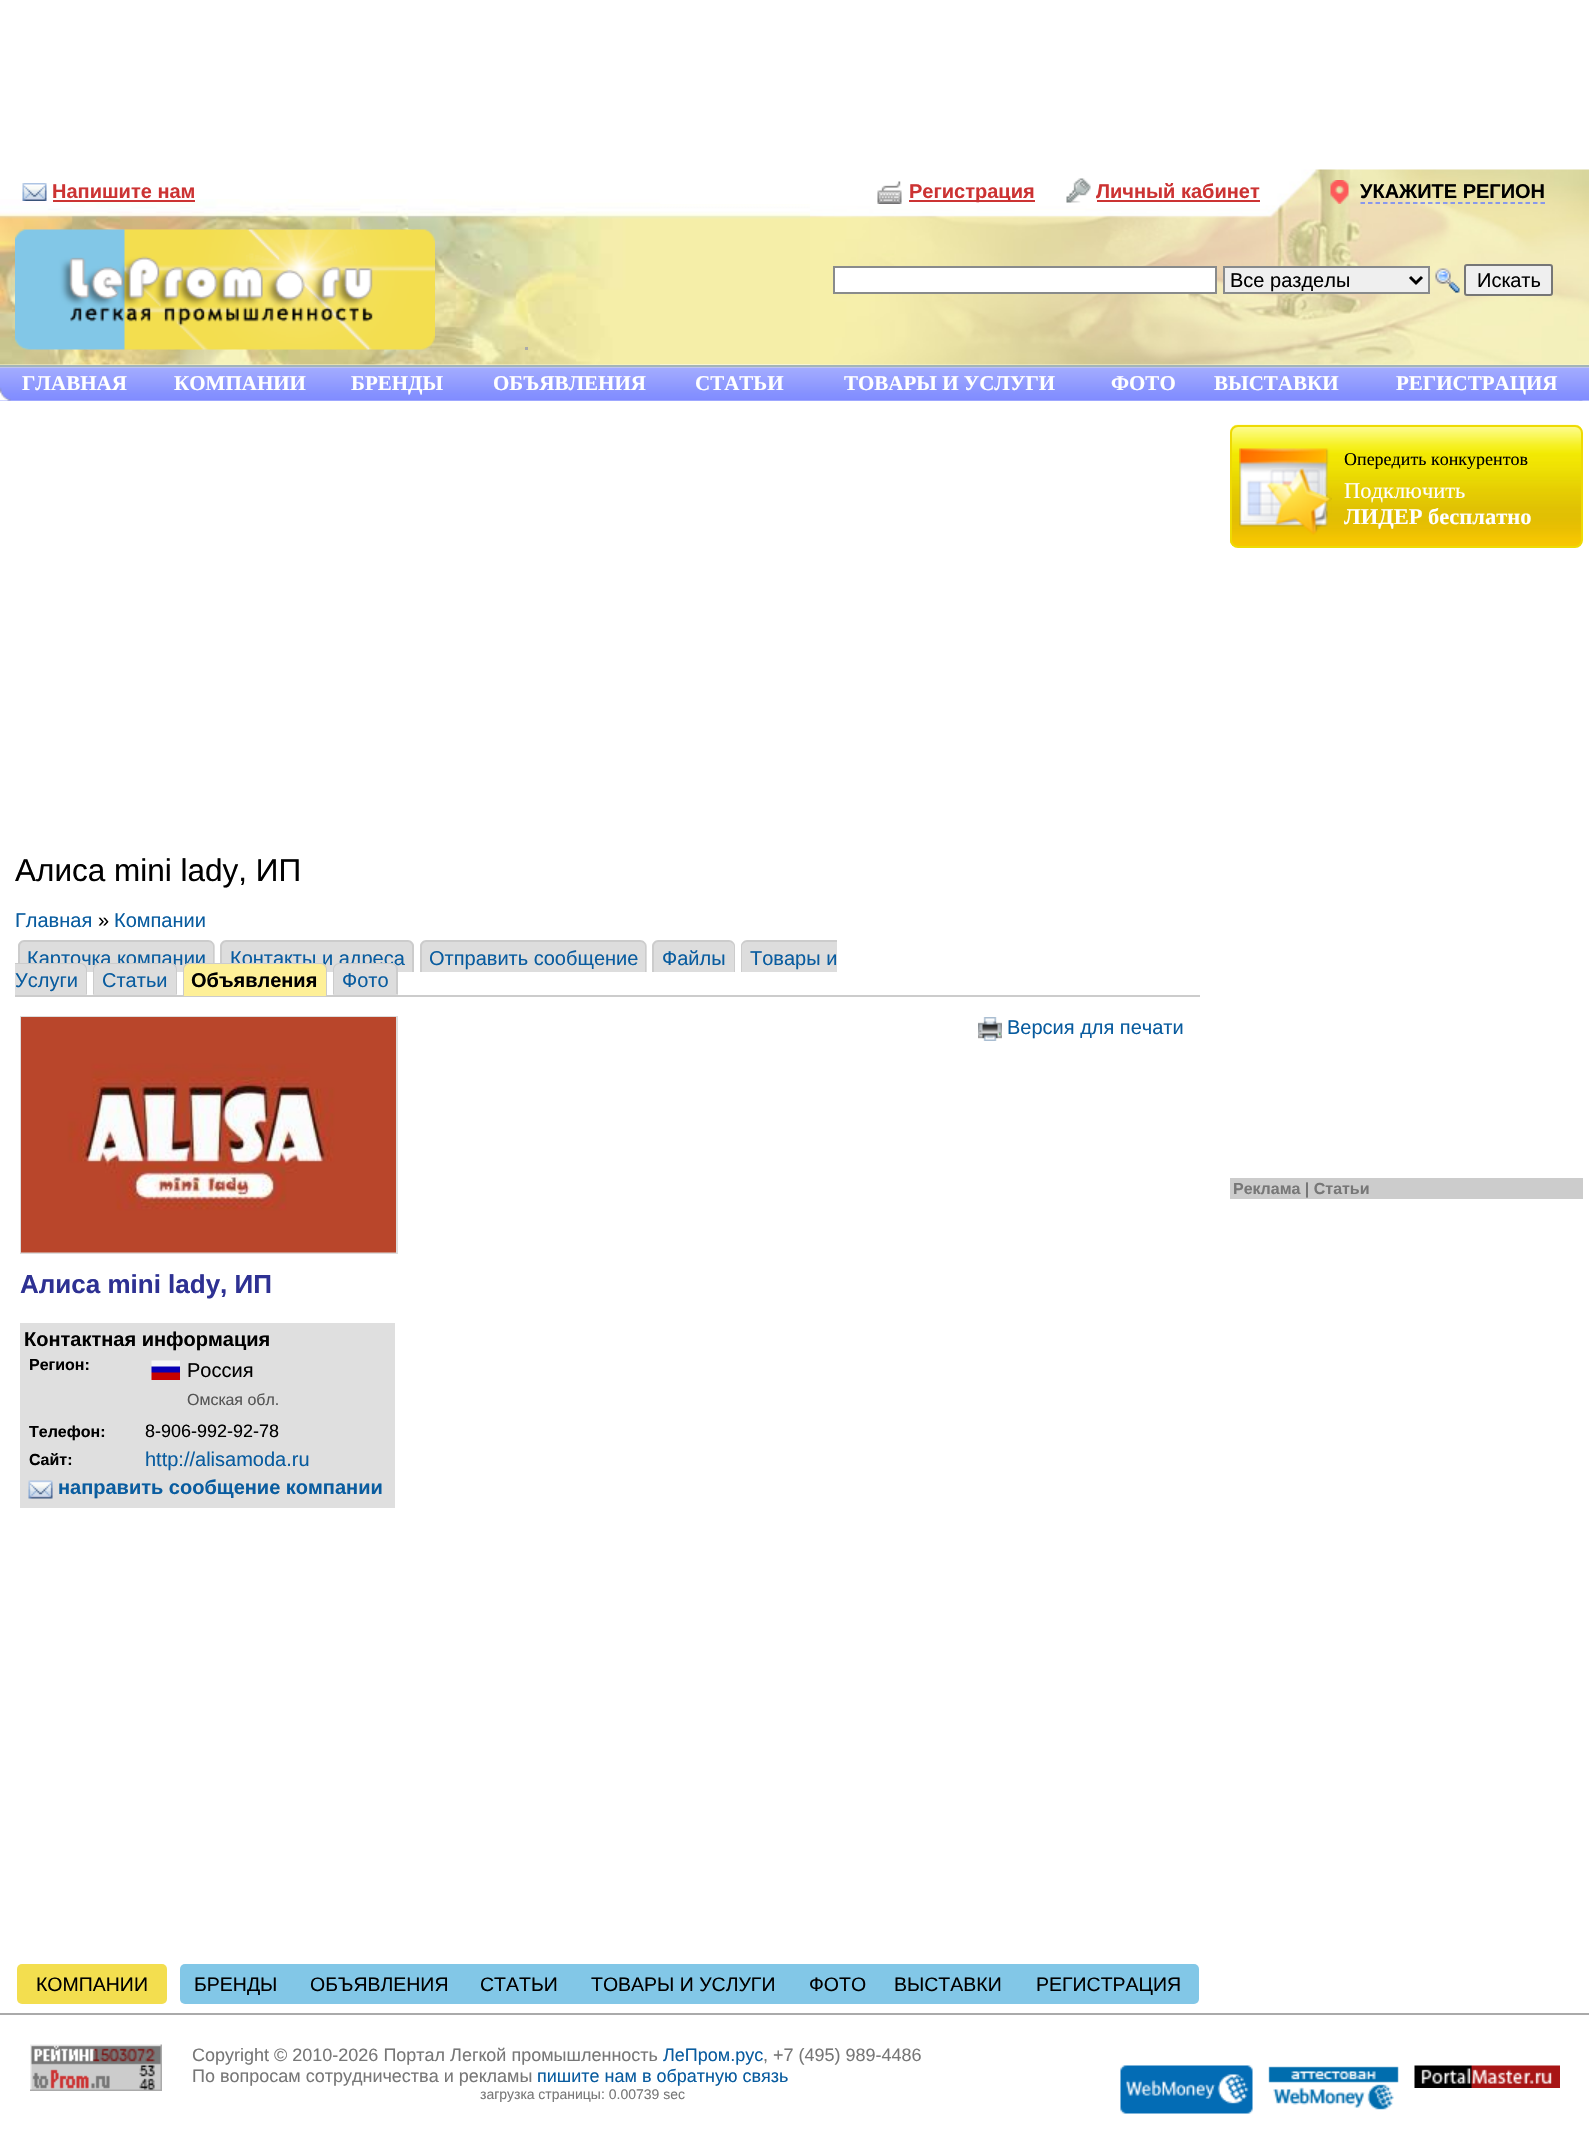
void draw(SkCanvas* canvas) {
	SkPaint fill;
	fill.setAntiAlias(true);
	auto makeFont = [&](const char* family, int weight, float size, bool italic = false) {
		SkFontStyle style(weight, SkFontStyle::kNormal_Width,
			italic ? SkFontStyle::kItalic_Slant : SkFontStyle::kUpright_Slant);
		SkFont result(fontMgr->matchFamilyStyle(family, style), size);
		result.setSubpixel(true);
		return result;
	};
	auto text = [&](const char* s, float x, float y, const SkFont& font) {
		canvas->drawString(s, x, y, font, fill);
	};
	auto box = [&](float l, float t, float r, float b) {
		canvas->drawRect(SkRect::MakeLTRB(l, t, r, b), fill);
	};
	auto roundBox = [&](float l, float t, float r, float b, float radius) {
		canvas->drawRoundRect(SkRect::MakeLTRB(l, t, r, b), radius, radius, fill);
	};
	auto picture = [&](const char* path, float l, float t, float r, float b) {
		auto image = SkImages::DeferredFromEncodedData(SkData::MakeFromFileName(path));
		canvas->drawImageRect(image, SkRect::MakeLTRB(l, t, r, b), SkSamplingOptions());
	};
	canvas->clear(0xFFFFFFFF);
	picture("image0.png", 0, 204, 1589, 365);
	fill.setColor(0xFFA3B5B9);
	box(0, 365, 1589, 367);
	picture("image1.png", 0, 199, 660, 365);
	picture("image2.png", 810, 169, 1589, 365);
	picture("image3.png", 22, 183, 47, 201);
	fill.setColor(0xFFCC3333);
	box(53, 200, 195, 202);
	picture("image4.png", 877, 181, 902, 204);
	box(909, 200, 1035, 202);
	picture("image5.png", 1066, 178, 1091, 203);
	box(1097, 200, 1260, 202);
	picture("image6.png", 15, 229, 435, 350);
	fill.setColor(0xFFFFFFFF);
	canvas->drawRect(SkRect::MakeLTRB(834, 267, 1216, 293), fill);
	fill.setStyle(SkPaint::kStroke_Style);
	fill.setStrokeWidth(2);
	fill.setColor(0xFF898B8C);
	canvas->drawRect(SkRect::MakeLTRB(834, 267, 1216, 293), fill);
	fill.setStyle(SkPaint::kFill_Style);
	fill.setColor(0xFFEFEFEF);
	canvas->drawRect(SkRect::MakeLTRB(1224, 267, 1429, 293), fill);
	fill.setStyle(SkPaint::kStroke_Style);
	fill.setColor(0xFF898B8C);
	canvas->drawRect(SkRect::MakeLTRB(1224, 267, 1429, 293), fill);
	fill.setStrokeWidth(3);
	fill.setColor(0xFF000000);
	canvas->drawPath(SkPathBuilder().moveTo(1410, 277).lineTo(1416, 283).lineTo(1422, 277).detach(), fill);
	picture("image7.png", 1435, 268, 1460, 293);
	fill.setStyle(SkPaint::kFill_Style);
	fill.setColor(0xFFEFEFEF);
	canvas->drawRoundRect(SkRect::MakeLTRB(1465, 265, 1552, 295), 2, 2, fill);
	fill.setStyle(SkPaint::kStroke_Style);
	fill.setStrokeWidth(2);
	fill.setColor(0xFF767676);
	canvas->drawRoundRect(SkRect::MakeLTRB(1465, 265, 1552, 295), 2, 2, fill);
	fill.setStyle(SkPaint::kFill_Style);
	fill.setColor(0xFFAAAAAA);
	box(525, 347, 528, 350);
	picture("image8.png", 1330, 180, 1349, 204);
	fill.setStyle(SkPaint::kStroke_Style);
	fill.setStrokeWidth(1.5f);
	fill.setColor(0xFF6780FF);
	fill.setPathEffect(SkDashPathEffect::Make({{4.5f, 3}}, 0));
	canvas->drawPath(SkPathBuilder().moveTo(1360.5f, 203).lineTo(1545, 203).detach(), fill);
	fill.setPathEffect(nullptr);
	picture("image9.png", 0, 400, 1589, 401);
	fill.setStyle(SkPaint::kFill_Style);
	fill.setColor(0xFFDDDDDD);
	box(0, 367, 1589, 368);
	picture("image11.png", 1579, 400, 1589, 401);
	picture("image12.png", 0, 367, 1589, 401);
	picture("image10.png", 0, 387, 11, 401);
	fill.setColor(0xFFCCCCCC);
	box(15, 995, 1200, 997);
	fill.setColor(0xFFDDDDDD);
	canvas->drawPath(SkPathBuilder().moveTo(24, 941).lineTo(209, 941).cubicTo(212.5f, 941, 215, 943.5f, 215, 947).lineTo(215, 972).lineTo(18, 972).lineTo(18, 947).cubicTo(18, 943.5f, 20.5f, 941, 24, 941).close().detach(), fill);
	fill.setColor(0xFFCCCCCC);
	canvas->drawPath(SkPathBuilder(SkPathFillType::kEvenOdd).moveTo(24, 940).lineTo(208, 940).cubicTo(212, 940, 214, 943, 214, 946).lineTo(214, 972).lineTo(18, 972).lineTo(18, 946).cubicTo(18, 943, 21, 940, 24, 940).close().moveTo(24, 942).lineTo(208, 942).cubicTo(211, 942, 213, 944, 213, 946).lineTo(213, 972).lineTo(20, 972).lineTo(20, 946).cubicTo(20, 944, 22, 942, 24, 942).close().detach(), fill);
	fill.setColor(0xFFDDDDDD);
	canvas->drawPath(SkPathBuilder().moveTo(227, 941).lineTo(408, 941).cubicTo(411.5f, 941, 414, 943.5f, 414, 947).lineTo(414, 972).lineTo(221, 972).lineTo(221, 947).cubicTo(221, 943.5f, 223.5f, 941, 227, 941).close().detach(), fill);
	fill.setColor(0xFFCCCCCC);
	canvas->drawPath(SkPathBuilder(SkPathFillType::kEvenOdd).moveTo(226, 940).lineTo(408, 940).cubicTo(411, 940, 414, 943, 414, 946).lineTo(414, 972).lineTo(220, 972).lineTo(220, 946).cubicTo(220, 943, 223, 940, 226, 940).close().moveTo(226, 942).lineTo(408, 942).cubicTo(410, 942, 412, 944, 412, 946).lineTo(412, 972).lineTo(222, 972).lineTo(222, 946).cubicTo(222, 944, 224, 942, 226, 942).close().detach(), fill);
	fill.setColor(0xFFDDDDDD);
	canvas->drawPath(SkPathBuilder().moveTo(426, 941).lineTo(641, 941).cubicTo(644.5f, 941, 647, 943.5f, 647, 947).lineTo(647, 972).lineTo(420, 972).lineTo(420, 947).cubicTo(420, 943.5f, 422.5f, 941, 426, 941).close().detach(), fill);
	fill.setColor(0xFFCCCCCC);
	canvas->drawPath(SkPathBuilder(SkPathFillType::kEvenOdd).moveTo(426, 940).lineTo(640, 940).cubicTo(644, 940, 646, 943, 646, 946).lineTo(646, 972).lineTo(420, 972).lineTo(420, 946).cubicTo(420, 943, 423, 940, 426, 940).close().moveTo(426, 942).lineTo(640, 942).cubicTo(643, 942, 645, 944, 645, 946).lineTo(645, 972).lineTo(422, 972).lineTo(422, 946).cubicTo(422, 944, 424, 942, 426, 942).close().detach(), fill);
	fill.setColor(0xFFDDDDDD);
	canvas->drawPath(SkPathBuilder().moveTo(659, 941).lineTo(729, 941).cubicTo(732.5f, 941, 735, 943.5f, 735, 947).lineTo(735, 972).lineTo(653, 972).lineTo(653, 947).cubicTo(653, 943.5f, 655.5f, 941, 659, 941).close().detach(), fill);
	fill.setColor(0xFFCCCCCC);
	canvas->drawPath(SkPathBuilder(SkPathFillType::kEvenOdd).moveTo(658, 940).lineTo(729, 940).cubicTo(732, 940, 735, 943, 735, 946).lineTo(735, 972).lineTo(652, 972).lineTo(652, 946).cubicTo(652, 943, 655, 940, 658, 940).close().moveTo(658, 942).lineTo(729, 942).cubicTo(731, 942, 734, 944, 734, 946).lineTo(734, 972).lineTo(654, 972).lineTo(654, 946).cubicTo(654, 944, 656, 942, 658, 942).close().detach(), fill);
	fill.setColor(0xFFDDDDDD);
	canvas->drawPath(SkPathBuilder().moveTo(747, 941).lineTo(837, 941).lineTo(837, 972).lineTo(741, 972).lineTo(741, 947).cubicTo(741, 943.5f, 743.5f, 941, 747, 941).close().detach(), fill);
	fill.setColor(0xFFCCCCCC);
	canvas->drawPath(SkPathBuilder(SkPathFillType::kEvenOdd).moveTo(747, 940).lineTo(837, 940).lineTo(837, 972).lineTo(741, 972).lineTo(741, 946).cubicTo(741, 943, 744, 940, 747, 940).close().moveTo(747, 942).lineTo(837, 942).lineTo(837, 972).lineTo(742, 972).lineTo(742, 946).cubicTo(742, 944, 745, 942, 747, 942).close().detach(), fill);
	picture("image13.png", 978, 1017, 1002, 1041);
	fill.setStyle(SkPaint::kStroke_Style);
	fill.setStrokeWidth(2);
	fill.setColor(0xFFDDDDDD);
	canvas->drawRect(SkRect::MakeLTRB(21, 1017, 397, 1253), fill);
	picture("image14.png", 21, 1017, 396, 1253);
	fill.setStyle(SkPaint::kFill_Style);
	fill.setColor(0xFFDFDFDF);
	box(20, 1323, 395, 1508);
	picture("image15.png", 151, 1360, 180, 1380);
	picture("image16.png", 28, 1480, 53, 1499);
	fill.setColor(0xFFF3DE4F);
	roundBox(17, 1964, 167, 2004, 5);
	fill.setColor(0xFF82C7E7);
	roundBox(180, 1964, 1199, 2004, 5);
	picture("image17.png", 1230, 424, 1583, 546);
	fill.setStyle(SkPaint::kStroke_Style);
	fill.setColor(0xFFEEDA03);
	canvas->drawRoundRect(SkRect::MakeLTRB(1231, 426, 1582, 547), 7, 7, fill);
	picture("image18.png", 1239, 448, 1332, 535);
	fill.setStyle(SkPaint::kFill_Style);
	fill.setColor(0xFFCCCCCC);
	box(1230, 1178, 1583, 1199);
	fill.setColor(0xFFAAAAAA);
	box(0, 2013, 1589, 2015);
	picture("image19.png", 30, 2044, 162, 2091);
	picture("image20.png", 1120, 2065, 1253, 2114);
	picture("image21.png", 1268, 2066, 1399, 2110);
	picture("image22.png", 1414, 2065, 1560, 2088);
	auto font1 = makeFont("Liberation Sans", 700, 20);
	fill.setColor(0xFFCC3333);
	text("Напишите нам", 52, 198, font1);
	text("Регистрация", 909, 198, font1);
	text("Личный кабинет", 1096, 198, font1);
	auto font2 = makeFont("Liberation Sans", 400, 20);
	fill.setColor(0xFF000000);
	text("Все разделы", 1230, 287, font2);
	text("Искать", 1477, 287, font2);
	text("УКАЖИТЕ РЕГИОН", 1360, 198, font1);
	auto font3 = makeFont("Liberation Serif", 700, 21);
	fill.setColor(0xFFFFFFFF);
	text("ГЛАВНАЯ", 22, 390, font3);
	text("КОМПАНИИ", 174, 390, font3);
	text("БРЕНДЫ", 351, 390, font3);
	text("ОБЪЯВЛЕНИЯ", 493, 390, font3);
	text("СТАТЬИ", 695, 390, font3);
	text("ТОВАРЫ И УСЛУГИ", 844, 390, font3);
	text("ФОТО", 1111, 390, font3);
	text("ВЫСТАВКИ", 1214, 390, font3);
	text("РЕГИСТРАЦИЯ", 1396, 390, font3);
	auto font4 = makeFont("Liberation Sans", 400, 31.5f);
	fill.setColor(0xFF000000);
	text("Алиса mini lady, ИП", 15, 881, font4);
	fill.setColor(0xFF095C9F);
	text("Главная", 15, 927, font2);
	fill.setColor(0xFF000000);
	text("»", 98, 927, font2);
	fill.setColor(0xFF095C9F);
	text("Компании", 114, 927, font2);
	text("Карточка компании", 27, 965, font2);
	text("Контакты и адреса", 230, 965, font2);
	text("Отправить сообщение", 429, 965, font2);
	text("Файлы", 662, 965, font2);
	text("Товары и", 750, 965, font2);
	fill.setColor(0xFFDDDDDD);
	canvas->drawPath(SkPathBuilder().moveTo(15, 963).lineTo(81, 963).cubicTo(84.5f, 963, 87, 965.5f, 87, 969).lineTo(87, 995).lineTo(15, 995).close().detach(), fill);
	fill.setColor(0xFFCCCCCC);
	canvas->drawPath(SkPathBuilder(SkPathFillType::kEvenOdd).moveTo(15, 963).lineTo(81, 963).cubicTo(84, 963, 87, 966, 87, 969).lineTo(87, 994).lineTo(15, 994).close().moveTo(15, 964).lineTo(81, 964).cubicTo(83, 964, 86, 967, 86, 969).lineTo(86, 994).lineTo(15, 994).close().detach(), fill);
	fill.setColor(0xFF095C9F);
	text("Услуги", 15, 987, font2);
	fill.setColor(0xFFDDDDDD);
	canvas->drawPath(SkPathBuilder().moveTo(99, 963).lineTo(171, 963).cubicTo(174.5f, 963, 177, 965.5f, 177, 969).lineTo(177, 995).lineTo(93, 995).lineTo(93, 969).cubicTo(93, 965.5f, 95.5f, 963, 99, 963).close().detach(), fill);
	fill.setColor(0xFFCCCCCC);
	canvas->drawPath(SkPathBuilder(SkPathFillType::kEvenOdd).moveTo(99, 963).lineTo(171, 963).cubicTo(174, 963, 177, 966, 177, 969).lineTo(177, 994).lineTo(93, 994).lineTo(93, 969).cubicTo(93, 966, 96, 963, 99, 963).close().moveTo(99, 964).lineTo(171, 964).cubicTo(173, 964, 176, 967, 176, 969).lineTo(176, 994).lineTo(94, 994).lineTo(94, 969).cubicTo(94, 967, 97, 964, 99, 964).close().detach(), fill);
	fill.setColor(0xFF095C9F);
	text("Статьи", 102, 987, font2);
	fill.setColor(0xFFFEF098);
	canvas->drawPath(SkPathBuilder().moveTo(189, 963).lineTo(321, 963).cubicTo(324.5f, 963, 327, 965.5f, 327, 969).lineTo(327, 996).lineTo(183, 996).lineTo(183, 969).cubicTo(183, 965.5f, 185.5f, 963, 189, 963).close().detach(), fill);
	fill.setColor(0xFFCCCCCC);
	canvas->drawPath(SkPathBuilder(SkPathFillType::kEvenOdd).moveTo(189, 963).lineTo(321, 963).cubicTo(324, 963, 327, 966, 327, 969).lineTo(327, 996).lineTo(183, 996).lineTo(183, 969).cubicTo(183, 966, 186, 963, 189, 963).close().moveTo(189, 964).lineTo(321, 964).cubicTo(323, 964, 326, 967, 326, 969).lineTo(326, 996).lineTo(184, 996).lineTo(184, 969).cubicTo(184, 967, 187, 964, 189, 964).close().detach(), fill);
	fill.setColor(0xFF000000);
	text("Объявления", 191, 987, font1);
	fill.setColor(0xFFDDDDDD);
	canvas->drawPath(SkPathBuilder().moveTo(339, 963).lineTo(392, 963).cubicTo(395.5f, 963, 398, 965.5f, 398, 969).lineTo(398, 995).lineTo(333, 995).lineTo(333, 969).cubicTo(333, 965.5f, 335.5f, 963, 339, 963).close().detach(), fill);
	fill.setColor(0xFFCCCCCC);
	canvas->drawPath(SkPathBuilder(SkPathFillType::kEvenOdd).moveTo(339, 963).lineTo(392, 963).cubicTo(395, 963, 398, 966, 398, 969).lineTo(398, 994).lineTo(333, 994).lineTo(333, 969).cubicTo(333, 966, 336, 963, 339, 963).close().moveTo(339, 964).lineTo(392, 964).cubicTo(394, 964, 396, 967, 396, 969).lineTo(396, 994).lineTo(334, 994).lineTo(334, 969).cubicTo(334, 967, 337, 964, 339, 964).close().detach(), fill);
	fill.setColor(0xFF095C9F);
	text("Фото", 342, 987, font2);
	text("Версия для печати", 1007, 1034, font2);
	auto font5 = makeFont("Liberation Sans", 700, 26);
	fill.setColor(0xFF2E3193);
	text("Алиса mini lady, ИП", 20, 1293, font5);
	fill.setColor(0xFF000000);
	text("Контактная информация", 24, 1346, font1);
	auto font6 = makeFont("Liberation Sans", 700, 16);
	text("Регион:", 29, 1370, font6);
	text("Россия", 187, 1377, font2);
	auto font7 = makeFont("Liberation Sans", 400, 16);
	fill.setColor(0xFF555555);
	text("Омская обл.", 187, 1405, font7);
	fill.setColor(0xFF000000);
	text("Телефон:", 29, 1437, font6);
	auto font8 = makeFont("Liberation Sans", 400, 18);
	text("8-906-992-92-78", 145, 1437, font8);
	text("Сайт:", 29, 1465, font6);
	fill.setColor(0xFF095C9F);
	text("http://alisamoda.ru", 145, 1466, font2);
	text("направить сообщение компании", 58, 1494, font1);
	auto font9 = makeFont("Liberation Sans", 400, 19.5f);
	fill.setColor(0xFF000000);
	text("КОМПАНИИ", 36, 1991, font9);
	text("БРЕНДЫ", 194, 1991, font9);
	text("ОБЪЯВЛЕНИЯ", 310, 1991, font9);
	text("СТАТЬИ", 480, 1991, font9);
	text("ТОВАРЫ И УСЛУГИ", 591, 1991, font9);
	text("ФОТО", 809, 1991, font9);
	text("ВЫСТАВКИ", 894, 1991, font9);
	text("РЕГИСТРАЦИЯ", 1036, 1991, font9);
	auto font10 = makeFont("Liberation Serif", 400, 18);
	text("Опередить конкурентов", 1344, 465, font10);
	auto font11 = makeFont("Liberation Serif", 400, 22.5f);
	fill.setColor(0xFFFFFFFF);
	text("Подключить", 1344, 498, font11);
	auto font12 = makeFont("Liberation Serif", 700, 22.5f);
	text("ЛИДЕР бесплатно", 1344, 524, font12);
	fill.setColor(0xFF777777);
	text("Реклама | Статьи", 1233, 1194, font6);
	text("Copyright © 2010-2026 Портал Легкой промышленность", 192, 2061, font8);
	fill.setColor(0xFF095C9F);
	text("ЛеПром.рус", 663, 2061, font8);
	fill.setColor(0xFF777777);
	text(", +7 (495) 989-4486", 763, 2061, font8);
	text("По вопросам сотрудничества и рекламы", 192, 2082, font8);
	fill.setColor(0xFF095C9F);
	text("пишите нам в обратную связь", 537, 2082, font8);
	auto font13 = makeFont("Liberation Sans", 400, 14);
	fill.setColor(0xFF777777);
	text("загрузка страницы: 0.00739 sec", 480, 2099, font13);
}
